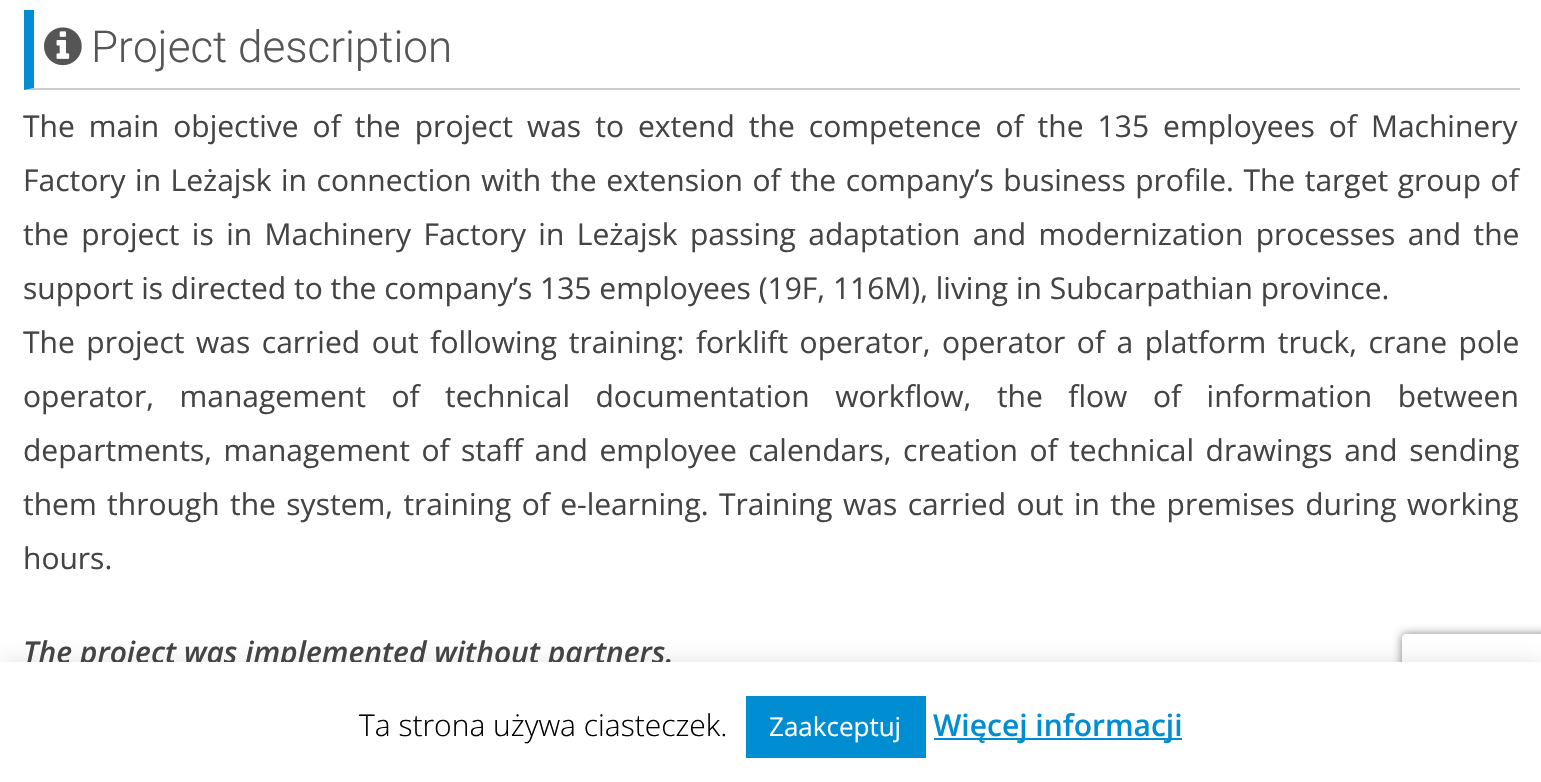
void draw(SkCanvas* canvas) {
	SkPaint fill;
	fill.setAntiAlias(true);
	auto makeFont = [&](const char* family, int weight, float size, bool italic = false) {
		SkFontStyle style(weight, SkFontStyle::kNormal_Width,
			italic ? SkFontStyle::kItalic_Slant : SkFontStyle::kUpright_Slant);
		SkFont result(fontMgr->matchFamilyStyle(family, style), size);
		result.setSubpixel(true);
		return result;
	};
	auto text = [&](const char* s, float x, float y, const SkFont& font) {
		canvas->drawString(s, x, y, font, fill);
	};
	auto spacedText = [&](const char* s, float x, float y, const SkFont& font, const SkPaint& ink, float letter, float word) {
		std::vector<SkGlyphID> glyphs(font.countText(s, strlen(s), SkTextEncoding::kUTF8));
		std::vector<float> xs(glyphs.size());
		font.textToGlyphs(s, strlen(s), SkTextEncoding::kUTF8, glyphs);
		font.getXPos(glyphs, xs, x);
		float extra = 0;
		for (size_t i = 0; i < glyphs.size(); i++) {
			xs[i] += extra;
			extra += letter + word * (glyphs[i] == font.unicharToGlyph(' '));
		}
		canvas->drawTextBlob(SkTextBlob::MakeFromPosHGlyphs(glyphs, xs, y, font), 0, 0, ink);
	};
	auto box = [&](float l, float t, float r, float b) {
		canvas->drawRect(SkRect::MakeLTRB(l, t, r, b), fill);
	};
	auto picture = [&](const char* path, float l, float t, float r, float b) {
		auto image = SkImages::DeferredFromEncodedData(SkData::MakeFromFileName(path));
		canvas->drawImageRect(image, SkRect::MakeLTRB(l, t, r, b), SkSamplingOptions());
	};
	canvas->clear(0xFFFFFFFF);
	fill.setColor(0xFFCCCCCC);
	canvas->drawPath(SkPathBuilder().moveTo(1520, 90).lineTo(24, 90).lineTo(34, 88).lineTo(1520, 88).close().detach(), fill);
	fill.setColor(0xFF008DD2);
	canvas->drawPath(SkPathBuilder().moveTo(24, 90).lineTo(24, 10).lineTo(34, 10).lineTo(34, 88).close().detach(), fill);
	picture("image0.png", 44, 27, 82, 66);
	fill.setColor(0x4DACABAB);
	fill.setMaskFilter(SkMaskFilter::MakeBlur(kNormal_SkBlurStyle, 10));
	canvas->drawRect(SkRect::MakeLTRB(0, 660, 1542, 780), fill);
	fill.setMaskFilter(nullptr);
	canvas->save();
	canvas->clipPath(SkPathBuilder(SkPathFillType::kEvenOdd).moveTo(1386, 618).lineTo(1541, 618).lineTo(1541, 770).lineTo(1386, 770).close().moveTo(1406, 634).lineTo(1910, 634).cubicTo(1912, 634, 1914, 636, 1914, 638).lineTo(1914, 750).cubicTo(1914, 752, 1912, 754, 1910, 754).lineTo(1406, 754).cubicTo(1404, 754, 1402, 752, 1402, 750).lineTo(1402, 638).cubicTo(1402, 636, 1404, 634, 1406, 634).close().detach(), true);
	fill.setColor(0xFF808080);
	fill.setMaskFilter(SkMaskFilter::MakeBlur(kNormal_SkBlurStyle, 5));
	canvas->drawRoundRect(SkRect::MakeLTRB(1402, 634, 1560, 754), 4, 4, fill);
	fill.setMaskFilter(nullptr);
	canvas->restore();
	auto font1 = makeFont("Roboto", 300, 44);
	fill.setColor(0xFF555555);
	text("Project description", 91, 62, font1);
	auto font2 = makeFont("Open Sans", 400, 30);
	fill.setColor(0xFF444444);
	spacedText("The main objective of the project was to extend the competence of the 135 employees of Machinery", 23, 137, font2, fill, 0, 6.25f);
	spacedText("Factory in Leżajsk in connection with the extension of the company’s business profile. The target group of", 23, 191, font2, fill, 0, 1.75f);
	spacedText("the project is in Machinery Factory in Leżajsk passing adaptation and modernization processes and the", 23, 245, font2, fill, 0, 4.6f);
	text("support is directed to the company’s 135 employees (19F, 116M), living in Subcarpathian province.", 23, 299, font2);
	spacedText("The project was carried out following training: forklift operator, operator of a platform truck, crane pole", 23, 353, font2, fill, 0, 3.75f);
	spacedText("operator, management of technical documentation workflow, the flow of information between", 23, 407, font2, fill, 0, 17.75f);
	spacedText("departments, management of staff and employee calendars, creation of technical drawings and sending", 23, 461, font2, fill, 0, 3.75f);
	spacedText("them through the system, training of e-learning. Training was carried out in the premises during working", 23, 515, font2, fill, 0, 2.6f);
	text("hours.", 23, 569, font2);
	auto font3 = makeFont("Open Sans", 600, 30, true);
	text("The project was implemented without partners.", 23, 663, font3);
	fill.setColor(0xFFFFFFFF);
	box(0, 662, 1541, 782);
	auto font4 = makeFont("Open Sans", 300, 30);
	fill.setColor(0xFF000000);
	text("Ta strona używa ciasteczek.", 359, 736, font4);
	fill.setColor(0xFF008DD2);
	box(746, 696, 926, 758);
	auto font5 = makeFont("Open Sans", 400, 26);
	fill.setColor(0xFFFFFFFF);
	text("Zaakceptuj", 769, 736, font5);
	fill.setColor(0xFF008DD2);
	box(934, 738, 1182, 740);
	auto font6 = makeFont("Open Sans", 600, 30);
	text("Więcej informacji", 933, 736, font6);
}
